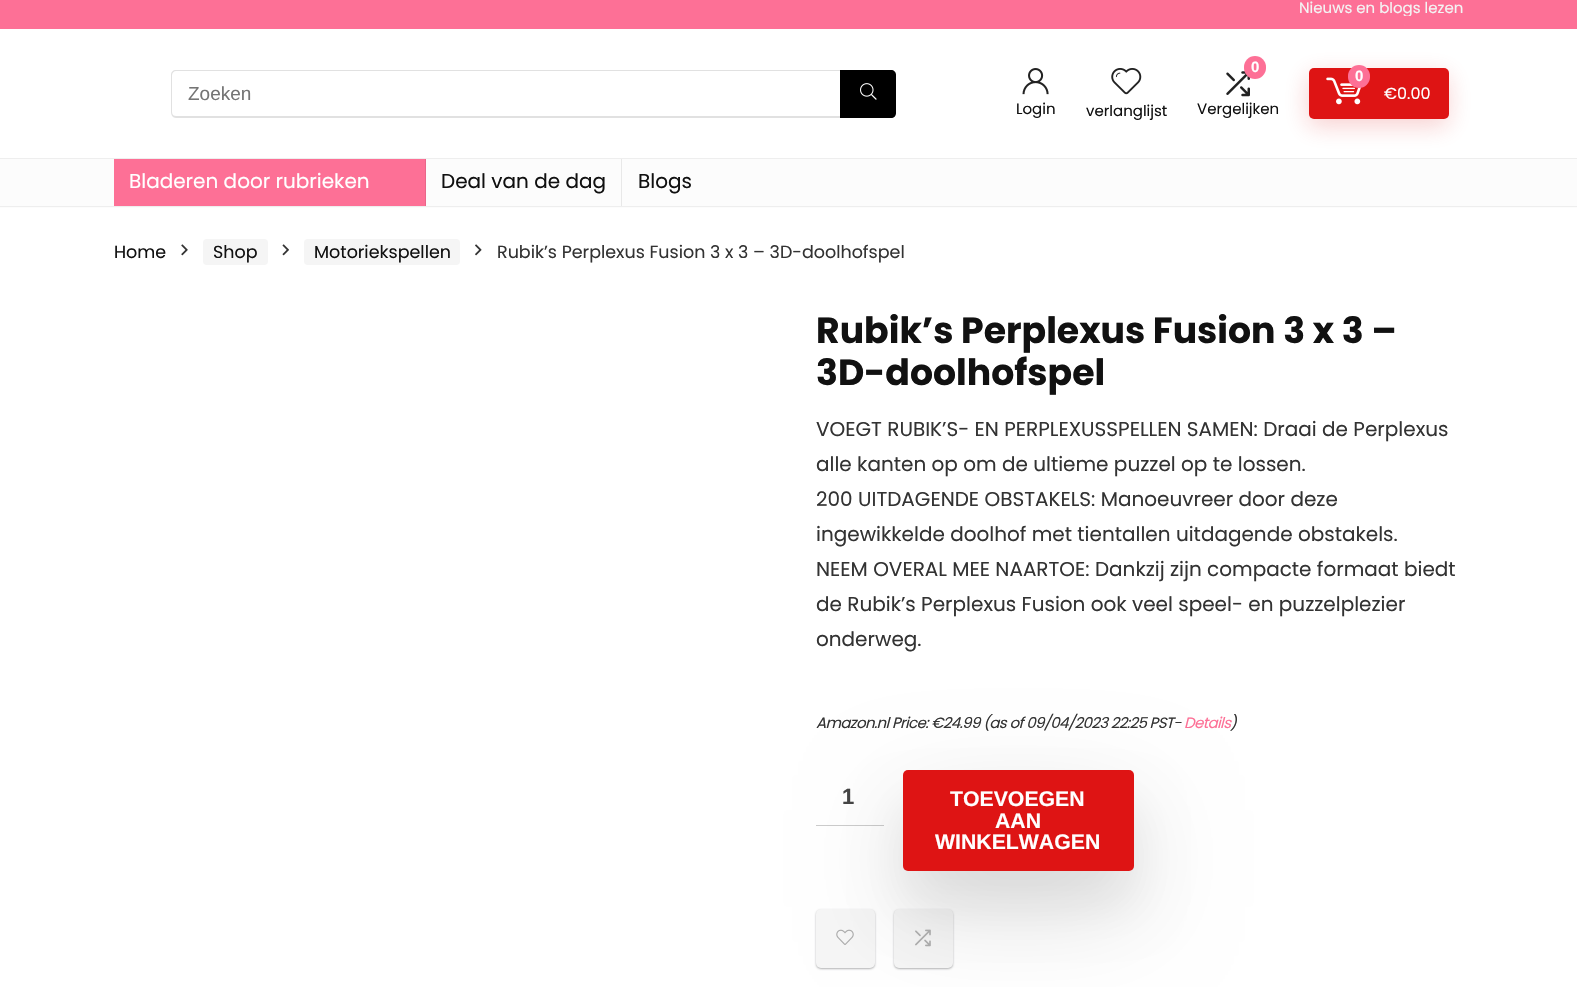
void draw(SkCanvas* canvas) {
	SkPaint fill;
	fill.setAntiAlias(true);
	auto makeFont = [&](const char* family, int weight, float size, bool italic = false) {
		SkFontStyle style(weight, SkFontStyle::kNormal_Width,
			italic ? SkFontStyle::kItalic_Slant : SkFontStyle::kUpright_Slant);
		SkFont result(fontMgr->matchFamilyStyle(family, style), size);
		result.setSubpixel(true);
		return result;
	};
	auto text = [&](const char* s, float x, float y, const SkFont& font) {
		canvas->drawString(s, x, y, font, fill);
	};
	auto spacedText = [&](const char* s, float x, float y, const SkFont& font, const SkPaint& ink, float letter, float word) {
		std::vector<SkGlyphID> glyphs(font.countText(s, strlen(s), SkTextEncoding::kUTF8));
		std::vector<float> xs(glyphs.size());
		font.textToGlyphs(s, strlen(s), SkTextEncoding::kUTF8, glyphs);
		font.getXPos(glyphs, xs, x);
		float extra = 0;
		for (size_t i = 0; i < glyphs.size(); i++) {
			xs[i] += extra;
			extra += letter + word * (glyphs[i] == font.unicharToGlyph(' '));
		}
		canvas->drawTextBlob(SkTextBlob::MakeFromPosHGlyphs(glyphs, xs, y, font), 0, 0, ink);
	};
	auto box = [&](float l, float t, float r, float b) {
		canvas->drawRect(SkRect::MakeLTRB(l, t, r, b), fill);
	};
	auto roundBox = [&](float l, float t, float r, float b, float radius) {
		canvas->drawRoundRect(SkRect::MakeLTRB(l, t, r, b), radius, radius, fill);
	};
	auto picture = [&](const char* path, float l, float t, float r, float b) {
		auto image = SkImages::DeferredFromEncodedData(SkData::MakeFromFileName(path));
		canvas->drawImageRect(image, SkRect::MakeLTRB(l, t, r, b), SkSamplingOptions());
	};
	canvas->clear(0xFFFFFFFF);
	fill.setColor(0xFFFD7096);
	box(0, 0, 1577, 29);
	fill.setColor(0xFFE1E1E1);
	canvas->drawPath(SkPathBuilder(SkPathFillType::kEvenOdd).moveTo(176, 70).lineTo(840, 70).lineTo(840, 118).lineTo(176, 118).cubicTo(173, 118, 171, 115, 171, 112).lineTo(171, 75).cubicTo(171, 72, 173, 70, 176, 70).close().moveTo(176, 71).lineTo(840, 71).lineTo(840, 116).lineTo(176, 116).cubicTo(174, 116, 172, 115, 172, 112).lineTo(172, 75).cubicTo(172, 73, 174, 71, 176, 71).close().detach(), fill);
	fill.setColor(0xFF000000);
	canvas->drawPath(SkPathBuilder().moveTo(840, 70).lineTo(891, 70).cubicTo(894, 70, 896, 72, 896, 75).lineTo(896, 113).cubicTo(896, 116, 894, 118, 891, 118).lineTo(840, 118).close().detach(), fill);
	picture("image0.png", 860, 83, 877, 100);
	picture("image1.png", 1226, 71, 1250, 97);
	fill.setColor(0xFFFD7096);
	roundBox(1244, 56, 1266, 79, 11);
	fill.setColor(0xFFFCFCFC);
	box(0, 159, 1577, 208);
	fill.setColor(0xFFEEEEEE);
	box(0, 158, 1577, 159);
	fill.setColor(0x33DE1414);
	fill.setMaskFilter(SkMaskFilter::MakeBlur(kNormal_SkBlurStyle, 12));
	canvas->drawRoundRect(SkRect::MakeLTRB(1308, 75, 1448, 126), 5, 5, fill);
	fill.setMaskFilter(nullptr);
	fill.setColor(0xFFDE1414);
	roundBox(1309, 68, 1449, 119, 5);
	picture("image2.png", 1326, 77, 1361, 105);
	fill.setColor(0xFFFD7096);
	roundBox(1348, 65, 1370, 88, 11);
	picture("image3.png", 1022, 68, 1049, 95);
	picture("image4.png", 1111, 68, 1142, 95);
	fill.setColor(0xFFEEEEEE);
	box(0, 206, 1577, 207);
	fill.setColor(0xFFFD7096);
	box(114, 159, 425, 206);
	fill.setColor(0xFFE9678A);
	box(425, 159, 426, 206);
	fill.setColor(0xFFE8E8E8);
	box(621, 159, 622, 206);
	picture("image5.png", 181, 244, 188, 256);
	fill.setColor(0xFFF5F5F5);
	roundBox(203, 239, 268, 265, 4);
	picture("image6.png", 282, 244, 289, 256);
	roundBox(304, 239, 460, 265, 4);
	picture("image7.png", 475, 244, 482, 256);
	fill.setColor(0xFFCCCCCC);
	box(816, 825, 884, 826);
	fill.setColor(0x14000000);
	fill.setMaskFilter(SkMaskFilter::MakeBlur(kNormal_SkBlurStyle, 1));
	canvas->drawRoundRect(SkRect::MakeLTRB(816, 910, 875, 969), 5, 5, fill);
	fill.setMaskFilter(nullptr);
	fill.setColor(0x4D3C4043);
	fill.setMaskFilter(SkMaskFilter::MakeBlur(kNormal_SkBlurStyle, 1));
	canvas->drawRoundRect(SkRect::MakeLTRB(816, 910, 875, 969), 5, 5, fill);
	fill.setMaskFilter(nullptr);
	fill.setColor(0xFFF6F6F6);
	roundBox(816, 909, 875, 968, 5);
	picture("image8.png", 836, 929, 854, 945);
	fill.setColor(0x14000000);
	fill.setMaskFilter(SkMaskFilter::MakeBlur(kNormal_SkBlurStyle, 1));
	canvas->drawRoundRect(SkRect::MakeLTRB(894, 910, 953, 969), 5, 5, fill);
	fill.setMaskFilter(nullptr);
	fill.setColor(0x4D3C4043);
	fill.setMaskFilter(SkMaskFilter::MakeBlur(kNormal_SkBlurStyle, 1));
	canvas->drawRoundRect(SkRect::MakeLTRB(894, 910, 953, 969), 5, 5, fill);
	fill.setMaskFilter(nullptr);
	fill.setColor(0xFFF6F6F6);
	roundBox(894, 909, 953, 968, 5);
	fill.setColor(0x1F000000);
	fill.setMaskFilter(SkMaskFilter::MakeBlur(kNormal_SkBlurStyle, 50));
	canvas->drawRoundRect(SkRect::MakeLTRB(903, 808, 1134, 909), 5, 5, fill);
	fill.setMaskFilter(nullptr);
	fill.setColor(0x0F000000);
	fill.setMaskFilter(SkMaskFilter::MakeBlur(kNormal_SkBlurStyle, 24));
	canvas->drawRoundRect(SkRect::MakeLTRB(903, 805, 1134, 906), 5, 5, fill);
	fill.setMaskFilter(nullptr);
	fill.setColor(0xFFDE1414);
	roundBox(903, 770, 1134, 871, 5);
	picture("image9.png", 915, 929, 931, 947);
	canvas->save();
	canvas->clipRect(SkRect::MakeLTRB(1300, 0, 1464, 16));
	auto font1 = makeFont("Poppins", 400, 15);
	fill.setColor(0xFFF4F4F4);
	text("Nieuws en blogs lezen", 1299, 13, font1);
	canvas->restore();
	auto font2 = makeFont("Liberation Sans", 400, 19);
	fill.setColor(0xFF757575);
	text("Zoeken", 188, 100, font2);
	auto font3 = makeFont("Liberation Sans", 700, 15);
	fill.setColor(0xFFFFFFFF);
	text("0", 1251, 72, font3);
	fill.setColor(0xFF111111);
	text("Vergelijken", 1197, 114, font1);
	fill.setColor(0xFFFFFFFF);
	text("0", 1355, 81, font3);
	auto font4 = makeFont("Poppins", 400, 16);
	text("€0.00", 1384, 99, font4);
	fill.setColor(0xFF111111);
	text("Login", 1016, 114, font1);
	text("verlanglijst", 1086, 116, font1);
	auto font5 = makeFont("Poppins", 400, 20);
	fill.setColor(0xFFFFFFFF);
	text("Bladeren door rubrieken", 129, 188, font5);
	fill.setColor(0xFF111111);
	text("Deal van de dag", 441, 188, font5);
	text("Blogs", 638, 188, font5);
	auto font6 = makeFont("Poppins", 400, 17.5f);
	text("Home", 114, 258, font6);
	text("Shop", 213, 258, font6);
	text("Motoriekspellen", 314, 258, font6);
	fill.setColor(0xFF333333);
	text("Rubik’s Perplexus Fusion 3 x 3 – 3D-doolhofspel", 497, 258, font6);
	auto font7 = makeFont("Poppins", 700, 36.25f);
	fill.setColor(0xFF111111);
	text("Rubik’s Perplexus Fusion 3 x 3 –", 816, 343, font7);
	text("3D-doolhofspel", 816, 385, font7);
	fill.setColor(0xFF333333);
	text("VOEGT RUBIK’S- EN PERPLEXUSSPELLEN SAMEN: Draai de Perplexus", 816, 436, font5);
	text("alle kanten op om de ultieme puzzel op te lossen.", 816, 471, font5);
	text("200 UITDAGENDE OBSTAKELS: Manoeuvreer door deze", 816, 506, font5);
	text("ingewikkelde doolhof met tientallen uitdagende obstakels.", 816, 541, font5);
	text("NEEM OVERAL MEE NAARTOE: Dankzij zijn compacte formaat biedt", 816, 576, font5);
	text("de Rubik’s Perplexus Fusion ook veel speel- en puzzelplezier", 816, 611, font5);
	text("onderweg.", 816, 646, font5);
	auto font8 = makeFont("Poppins", 400, 15, true);
	spacedText("Amazon.nl Price: €24.99 (as of 09/04/2023 22:25 PST-", 816, 728, font8, fill, -0.62f, 0);
	fill.setColor(0xFFFD7096);
	spacedText("Details", 1184, 728, font8, fill, -0.62f, 0);
	fill.setColor(0xFF333333);
	spacedText(")", 1230, 728, font8, fill, -0.62f, 0);
	auto font9 = makeFont("Liberation Sans", 700, 22);
	fill.setColor(0xFF444444);
	text("1", 842, 804, font9);
	auto font10 = makeFont("Liberation Sans", 700, 21.25f);
	fill.setColor(0xFFFFFFFF);
	text("TOEVOEGEN", 950, 806, font10);
	text("AAN", 995, 828, font10);
	text("WINKELWAGEN", 935, 849, font10);
}
